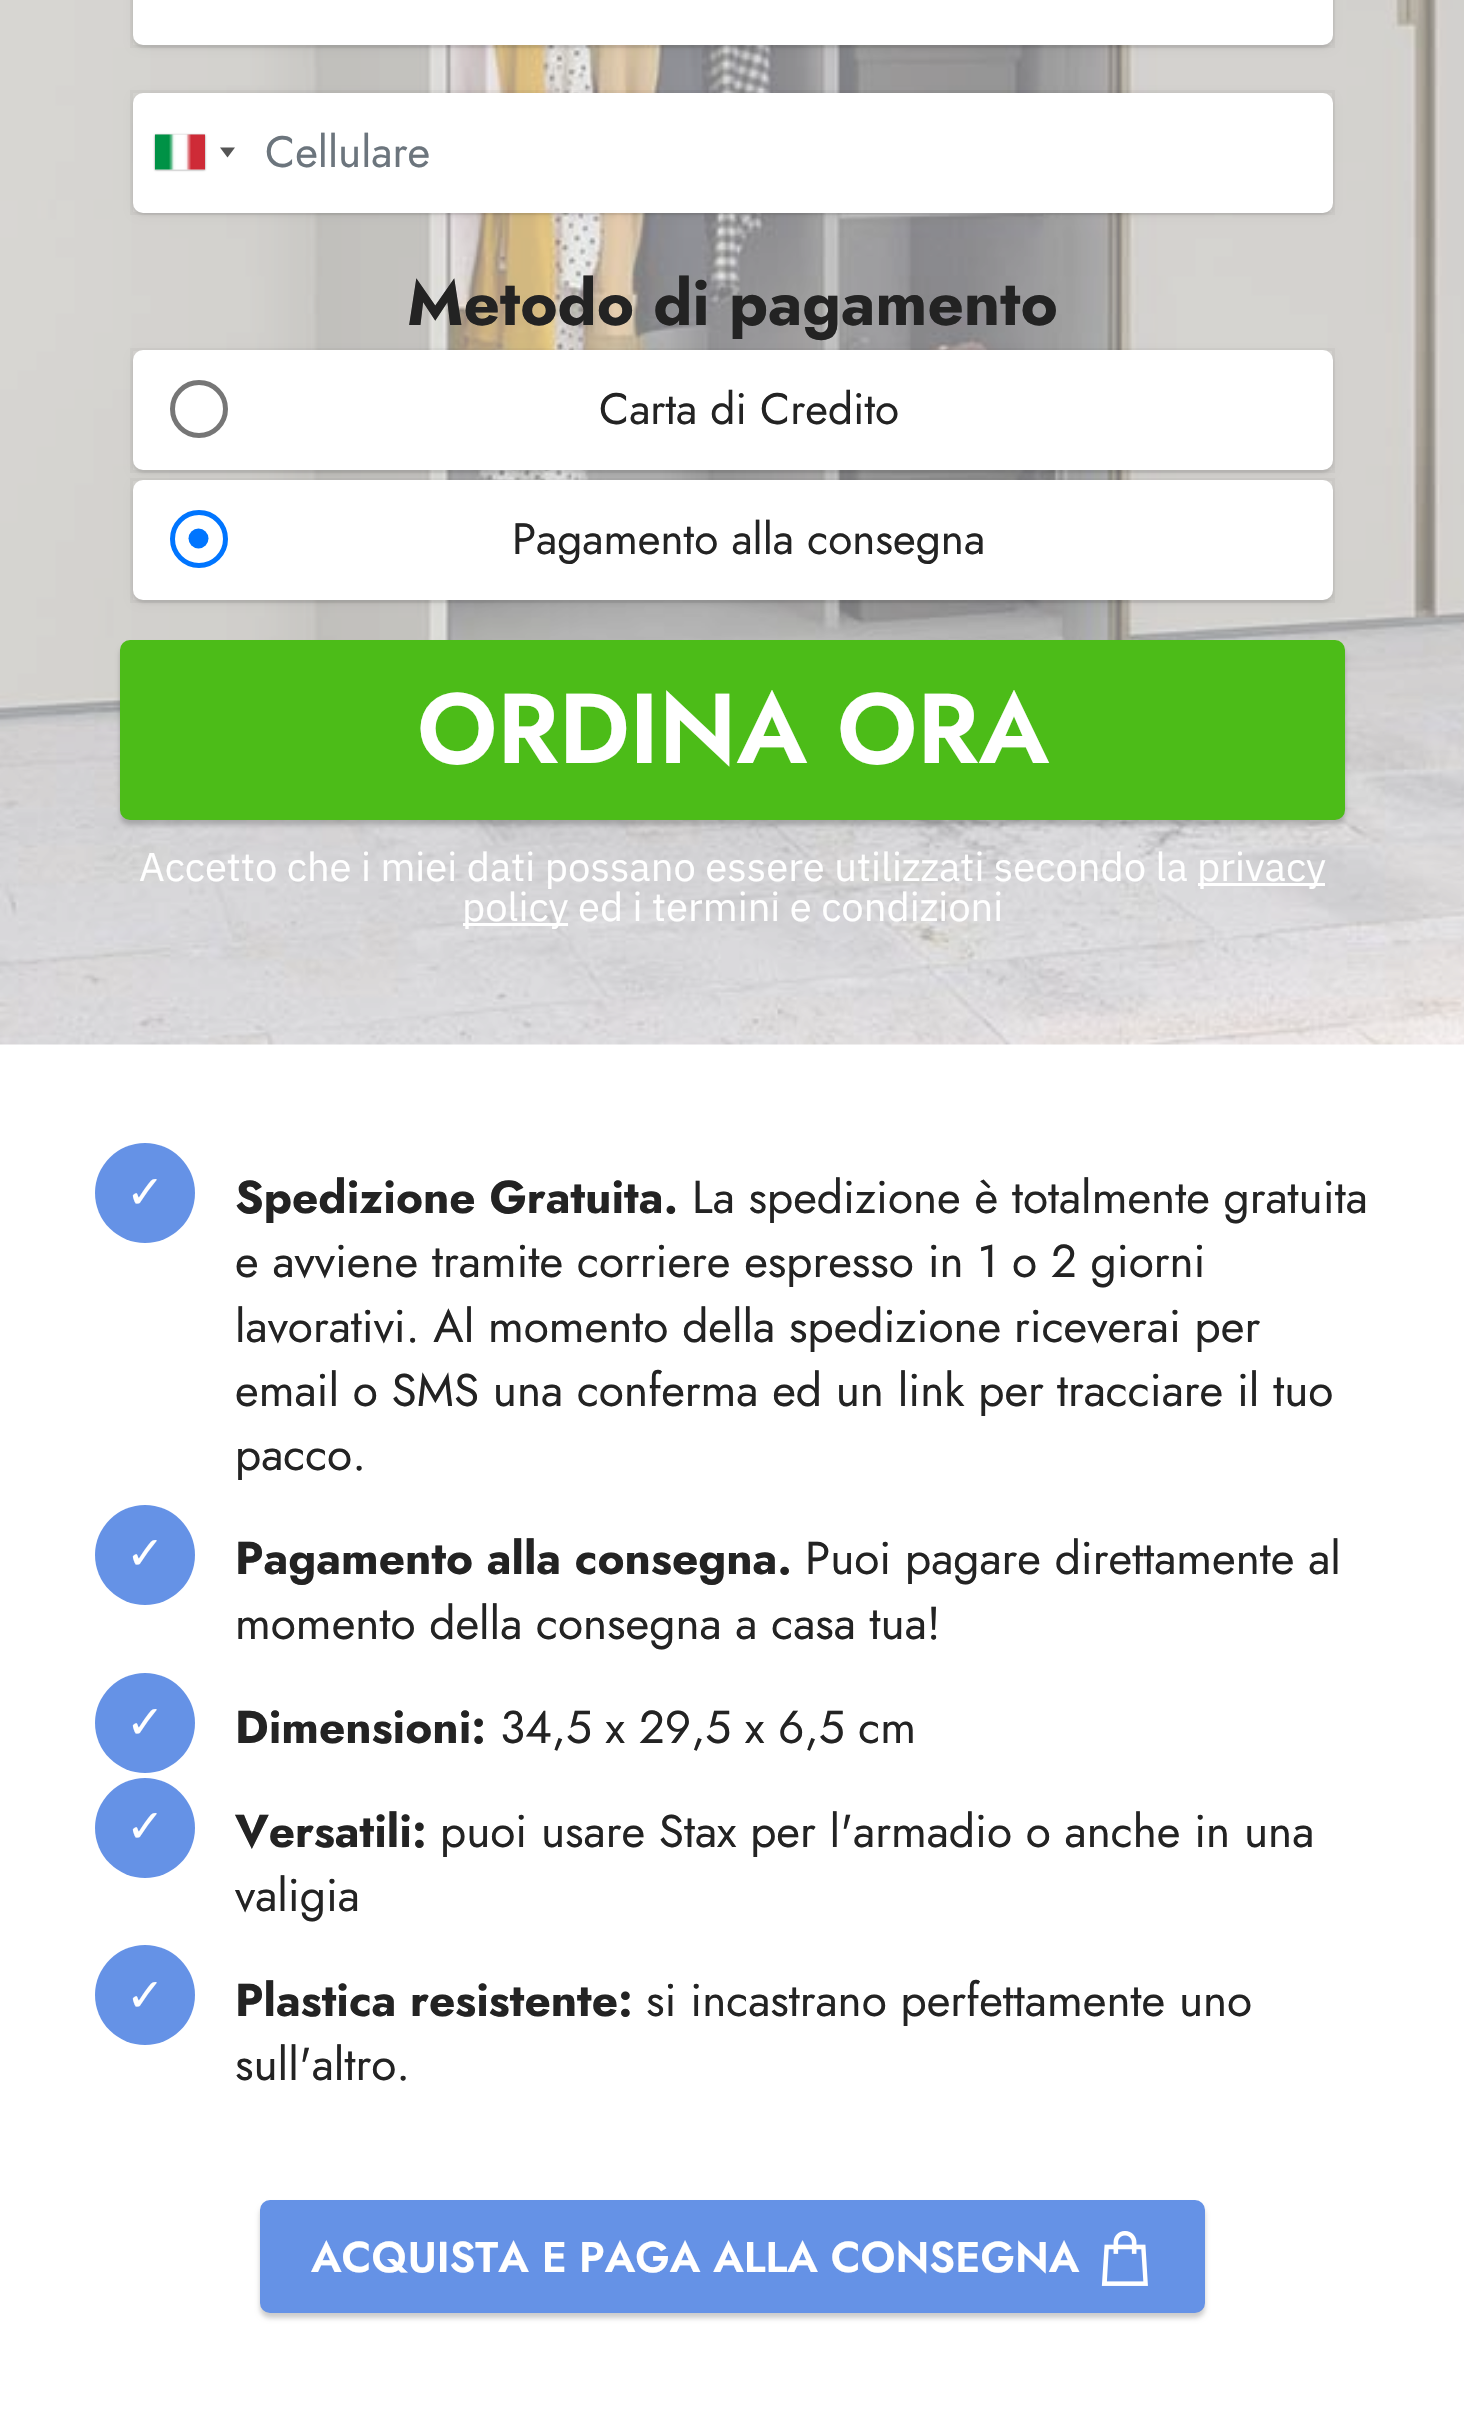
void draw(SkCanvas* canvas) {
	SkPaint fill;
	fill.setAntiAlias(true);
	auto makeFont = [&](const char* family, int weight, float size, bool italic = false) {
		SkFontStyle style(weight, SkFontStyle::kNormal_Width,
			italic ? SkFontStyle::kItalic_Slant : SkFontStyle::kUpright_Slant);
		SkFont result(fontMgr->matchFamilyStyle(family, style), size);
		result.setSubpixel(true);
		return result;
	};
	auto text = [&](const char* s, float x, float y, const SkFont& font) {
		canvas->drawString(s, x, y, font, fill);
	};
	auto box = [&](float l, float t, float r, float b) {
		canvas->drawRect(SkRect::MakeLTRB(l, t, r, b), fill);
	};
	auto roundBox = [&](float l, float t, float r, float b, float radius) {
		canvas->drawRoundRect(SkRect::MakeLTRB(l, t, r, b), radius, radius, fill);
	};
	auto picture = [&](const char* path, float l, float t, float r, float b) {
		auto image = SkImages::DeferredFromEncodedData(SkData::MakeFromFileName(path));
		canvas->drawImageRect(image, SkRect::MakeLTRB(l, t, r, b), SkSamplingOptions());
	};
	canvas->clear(0xFFFFFFFF);
	picture("image0.png", 0, 0, 1464, 1045);
	fill.setStyle(SkPaint::kStroke_Style);
	fill.setStrokeWidth(3);
	fill.setColor(0x08000000);
	canvas->drawRect(SkRect::MakeLTRB(131.5f, -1.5f, 1333.5f, 46.5f), fill);
	fill.setStyle(SkPaint::kFill_Style);
	fill.setColor(0x12000000);
	fill.setMaskFilter(SkMaskFilter::MakeBlur(kNormal_SkBlurStyle, 4));
	canvas->drawRoundRect(SkRect::MakeLTRB(133, -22, 1333, 48), 10, 10, fill);
	fill.setMaskFilter(nullptr);
	fill.setMaskFilter(SkMaskFilter::MakeBlur(kNormal_SkBlurStyle, 1));
	canvas->drawRoundRect(SkRect::MakeLTRB(133, -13, 1333, 48), 10, 10, fill);
	fill.setMaskFilter(nullptr);
	fill.setColor(0xFFFFFFFF);
	roundBox(133, -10, 1333, 45, 10);
	fill.setStyle(SkPaint::kStroke_Style);
	fill.setColor(0x08000000);
	canvas->drawRect(SkRect::MakeLTRB(131.5f, 91.5f, 1333.5f, 213.5f), fill);
	fill.setStyle(SkPaint::kFill_Style);
	fill.setColor(0x12000000);
	fill.setMaskFilter(SkMaskFilter::MakeBlur(kNormal_SkBlurStyle, 4));
	canvas->drawRoundRect(SkRect::MakeLTRB(133, 95, 1333, 215), 10, 10, fill);
	fill.setMaskFilter(nullptr);
	fill.setMaskFilter(SkMaskFilter::MakeBlur(kNormal_SkBlurStyle, 1));
	canvas->drawRoundRect(SkRect::MakeLTRB(133, 95, 1333, 215), 10, 10, fill);
	fill.setMaskFilter(nullptr);
	fill.setColor(0xFFFFFFFF);
	roundBox(133, 93, 1333, 213, 10);
	fill.setColor(0xFF888888);
	fill.setMaskFilter(SkMaskFilter::MakeBlur(kNormal_SkBlurStyle, 1));
	canvas->drawRect(SkRect::MakeLTRB(155, 135, 205, 170), fill);
	fill.setMaskFilter(nullptr);
	fill.setColor(0xFFDBDBDB);
	box(155, 169, 205, 170);
	picture("image1.png", 155, 134, 205, 170);
	fill.setColor(0xFF555555);
	canvas->drawPath(SkPathBuilder().moveTo(220, 147.5f).lineTo(235, 147.5f).lineTo(227.5f, 157.5f).close().detach(), fill);
	fill.setStyle(SkPaint::kStroke_Style);
	fill.setColor(0x08000000);
	canvas->drawRect(SkRect::MakeLTRB(131.5f, 349.5f, 1333.5f, 471.5f), fill);
	fill.setStyle(SkPaint::kFill_Style);
	fill.setColor(0x12000000);
	fill.setMaskFilter(SkMaskFilter::MakeBlur(kNormal_SkBlurStyle, 4));
	canvas->drawRoundRect(SkRect::MakeLTRB(133, 353, 1333, 473), 10, 10, fill);
	fill.setMaskFilter(nullptr);
	fill.setMaskFilter(SkMaskFilter::MakeBlur(kNormal_SkBlurStyle, 1));
	canvas->drawRoundRect(SkRect::MakeLTRB(133, 353, 1333, 473), 10, 10, fill);
	fill.setMaskFilter(nullptr);
	fill.setColor(0xFFFFFFFF);
	roundBox(133, 350, 1333, 470, 10);
	fill.setStyle(SkPaint::kStroke_Style);
	fill.setStrokeWidth(5);
	fill.setColor(0xFF767676);
	canvas->drawCircle(199, 409, 26.5f, fill);
	fill.setStrokeWidth(3);
	fill.setColor(0x08000000);
	canvas->drawRect(SkRect::MakeLTRB(131.5f, 479.5f, 1333.5f, 601.5f), fill);
	fill.setStyle(SkPaint::kFill_Style);
	fill.setColor(0x12000000);
	fill.setMaskFilter(SkMaskFilter::MakeBlur(kNormal_SkBlurStyle, 4));
	canvas->drawRoundRect(SkRect::MakeLTRB(133, 483, 1333, 603), 10, 10, fill);
	fill.setMaskFilter(nullptr);
	fill.setMaskFilter(SkMaskFilter::MakeBlur(kNormal_SkBlurStyle, 1));
	canvas->drawRoundRect(SkRect::MakeLTRB(133, 483, 1333, 603), 10, 10, fill);
	fill.setMaskFilter(nullptr);
	fill.setColor(0xFFFFFFFF);
	roundBox(133, 480, 1333, 600, 10);
	fill.setStyle(SkPaint::kStroke_Style);
	fill.setStrokeWidth(5);
	fill.setColor(0xFF0075FF);
	canvas->drawCircle(199, 539, 26.5f, fill);
	fill.setStyle(SkPaint::kFill_Style);
	canvas->drawCircle(198.5f, 538.5f, 10, fill);
	fill.setColor(0x33000000);
	fill.setMaskFilter(SkMaskFilter::MakeBlur(kNormal_SkBlurStyle, 2.5f));
	canvas->drawRoundRect(SkRect::MakeLTRB(120, 645, 1345, 825), 10, 10, fill);
	fill.setMaskFilter(nullptr);
	fill.setColor(0xFF4CBC18);
	canvas->drawRoundRect(SkRect::MakeLTRB(121.5f, 641.5f, 1343.5f, 818.5f), 8.5f, 8.5f, fill);
	fill.setStyle(SkPaint::kStroke_Style);
	fill.setStrokeWidth(3);
	canvas->drawRoundRect(SkRect::MakeLTRB(121.5f, 641.5f, 1343.5f, 818.5f), 8.5f, 8.5f, fill);
	fill.setStyle(SkPaint::kFill_Style);
	fill.setColor(0xFFFFFFFF);
	box(1198, 883, 1325, 886);
	box(463, 923, 568, 926);
	fill.setColor(0xFF6592E6);
	canvas->drawCircle(145, 1193, 50, fill);
	canvas->drawCircle(145, 1555, 50, fill);
	canvas->drawCircle(145, 1723, 50, fill);
	canvas->drawCircle(145, 1828, 50, fill);
	canvas->drawCircle(145, 1995, 50, fill);
	fill.setColor(0x33000000);
	fill.setMaskFilter(SkMaskFilter::MakeBlur(kNormal_SkBlurStyle, 2.5f));
	canvas->drawRoundRect(SkRect::MakeLTRB(260, 2205, 1205, 2318), 10, 10, fill);
	fill.setMaskFilter(nullptr);
	fill.setColor(0xFF6592E6);
	canvas->drawRoundRect(SkRect::MakeLTRB(261.5f, 2201.5f, 1203.5f, 2311.5f), 8.5f, 8.5f, fill);
	fill.setStyle(SkPaint::kStroke_Style);
	canvas->drawRoundRect(SkRect::MakeLTRB(261.5f, 2201.5f, 1203.5f, 2311.5f), 8.5f, 8.5f, fill);
	picture("image2.png", 1101, 2231, 1148, 2286);
	auto font1 = makeFont("Jost", 400, 44);
	fill.setStyle(SkPaint::kFill_Style);
	fill.setColor(0xFF6C757D);
	text("Cellulare", 265, 167, font1);
	auto font2 = makeFont("Jost", 700, 63.5f);
	fill.setColor(0xFF232323);
	text("Metodo di pagamento", 407, 325, font2);
	text("Carta di Credito", 599, 424, font1);
	text("Pagamento alla consegna", 512, 554, font1);
	auto font3 = makeFont("Jost", 600, 99);
	fill.setColor(0xFFFFFFFF);
	text("ORDINA ORA", 417, 763, font3);
	auto font4 = makeFont("IBM Plex Sans", 400, 40);
	text("Accetto che i miei dati possano essere utilizzati secondo la", 139, 881, font4);
	text("privacy", 1197, 881, font4);
	text("policy ed i termini e condizioni", 462, 921, font4);
	auto font5 = makeFont("DejaVu Sans", 400, 45.9f);
	text("✓", 126, 1208, font5);
	auto font6 = makeFont("Jost", 700, 45.9f);
	fill.setColor(0xFF232323);
	text("Spedizione Gratuita.", 235, 1213, font6);
	auto font7 = makeFont("Jost", 400, 45.9f);
	text("La spedizione è totalmente gratuita", 692, 1213, font7);
	text("e avviene tramite corriere espresso in 1 o 2 giorni", 235, 1277, font7);
	text("lavorativi. Al momento della spedizione", 235, 1342, font7);
	text("riceverai per", 1014, 1342, font7);
	text("email o SMS una conferma ed un link per", 235, 1406, font7);
	text("tracciare il tuo", 1057, 1406, font7);
	text("pacco.", 235, 1470, font7);
	fill.setColor(0xFFFFFFFF);
	text("✓", 126, 1569, font5);
	fill.setColor(0xFF232323);
	text("Pagamento alla consegna.", 235, 1574, font6);
	text("Puoi pagare direttamente al", 805, 1574, font7);
	text("momento della consegna a casa tua!", 235, 1639, font7);
	fill.setColor(0xFFFFFFFF);
	text("✓", 126, 1738, font5);
	fill.setColor(0xFF232323);
	text("Dimensioni:", 235, 1743, font6);
	text("34,5 x 29,5 x 6,5 cm", 500, 1743, font7);
	fill.setColor(0xFFFFFFFF);
	text("✓", 126, 1842, font5);
	fill.setColor(0xFF232323);
	text("Versatili:", 235, 1847, font6);
	text("puoi usare Stax per l'armadio o anche in una", 440, 1847, font7);
	text("valigia", 235, 1911, font7);
	fill.setColor(0xFFFFFFFF);
	text("✓", 126, 2011, font5);
	fill.setColor(0xFF232323);
	text("Plastica resistente:", 235, 2016, font6);
	text("si incastrano perfettamente uno", 646, 2016, font7);
	text("sull'altro.", 235, 2080, font7);
	auto font8 = makeFont("Jost", 600, 43);
	fill.setColor(0xFFFFFFFF);
	text("ACQUISTA E", 311, 2272, font8);
	text("PAGA ALLA CONSEGNA", 579, 2272, font8);
}
